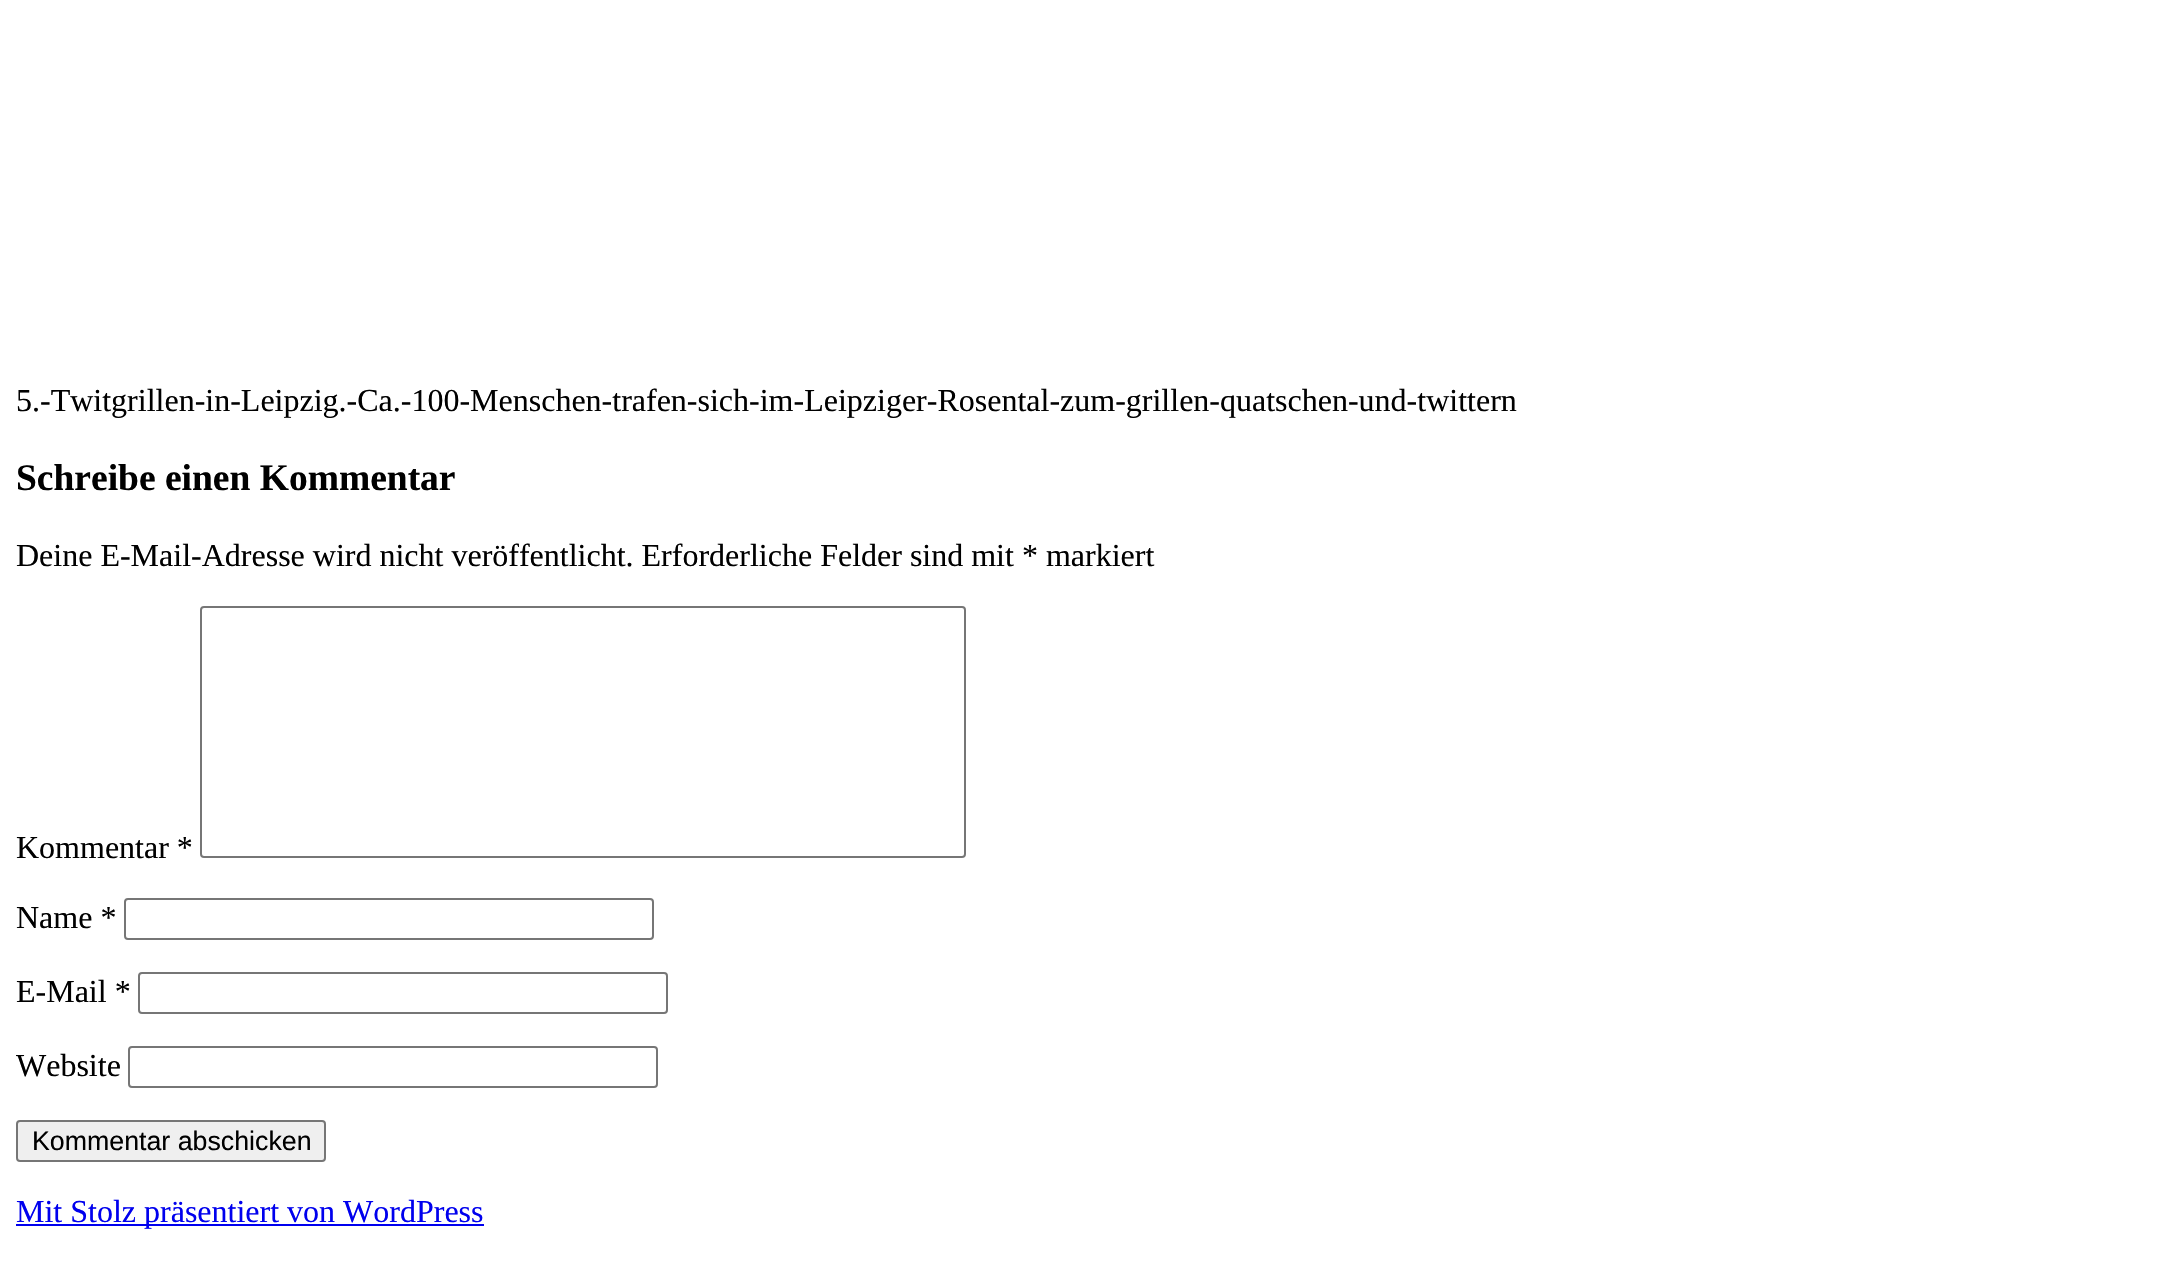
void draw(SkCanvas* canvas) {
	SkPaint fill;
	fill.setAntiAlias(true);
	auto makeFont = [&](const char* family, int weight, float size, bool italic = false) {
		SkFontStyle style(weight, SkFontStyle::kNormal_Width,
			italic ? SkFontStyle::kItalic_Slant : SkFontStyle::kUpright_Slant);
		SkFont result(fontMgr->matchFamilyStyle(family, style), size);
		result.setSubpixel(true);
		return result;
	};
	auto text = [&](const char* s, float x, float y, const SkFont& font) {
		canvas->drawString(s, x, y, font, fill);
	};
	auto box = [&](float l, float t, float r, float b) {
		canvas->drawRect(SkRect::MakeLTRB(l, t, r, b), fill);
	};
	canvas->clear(0xFFFFFFFF);
	fill.setStyle(SkPaint::kStroke_Style);
	fill.setStrokeWidth(2);
	fill.setColor(0xFF767676);
	canvas->drawRoundRect(SkRect::MakeLTRB(201, 607, 965, 857), 3, 3, fill);
	canvas->drawRoundRect(SkRect::MakeLTRB(125, 899, 653, 939), 3, 3, fill);
	canvas->drawRoundRect(SkRect::MakeLTRB(139, 973, 667, 1013), 3, 3, fill);
	canvas->drawRoundRect(SkRect::MakeLTRB(129, 1047, 657, 1087), 3, 3, fill);
	fill.setStyle(SkPaint::kFill_Style);
	fill.setColor(0xFFEFEFEF);
	canvas->drawRoundRect(SkRect::MakeLTRB(17, 1121, 325, 1161), 3, 3, fill);
	fill.setStyle(SkPaint::kStroke_Style);
	fill.setColor(0xFF767676);
	canvas->drawRoundRect(SkRect::MakeLTRB(17, 1121, 325, 1161), 3, 3, fill);
	fill.setStyle(SkPaint::kFill_Style);
	fill.setColor(0xFF0000EE);
	box(16, 1224, 484, 1226);
	auto font1 = makeFont("Liberation Serif", 400, 32);
	fill.setColor(0xFF000000);
	text("5.-Twitgrillen-in-Leipzig.-Ca.-100-Menschen-trafen-sich-im-Leipziger-Rosental-zum-grillen-quatschen-und-twittern", 16, 411, font1);
	auto font2 = makeFont("Liberation Serif", 700, 37.5f);
	text("Schreibe einen Kommentar", 16, 490, font2);
	text("Deine E-Mail-Adresse wird nicht veröffentlicht. Erforderliche Felder sind mit * markiert", 16, 566, font1);
	text("Kommentar *", 16, 858, font1);
	text("Name *", 16, 928, font1);
	text("E-Mail *", 16, 1002, font1);
	text("Website", 16, 1076, font1);
	auto font3 = makeFont("Liberation Sans", 400, 26.75f);
	text("Kommentar abschicken", 32, 1150, font3);
	fill.setColor(0xFF0000EE);
	text("Mit Stolz präsentiert von WordPress", 16, 1222, font1);
}
